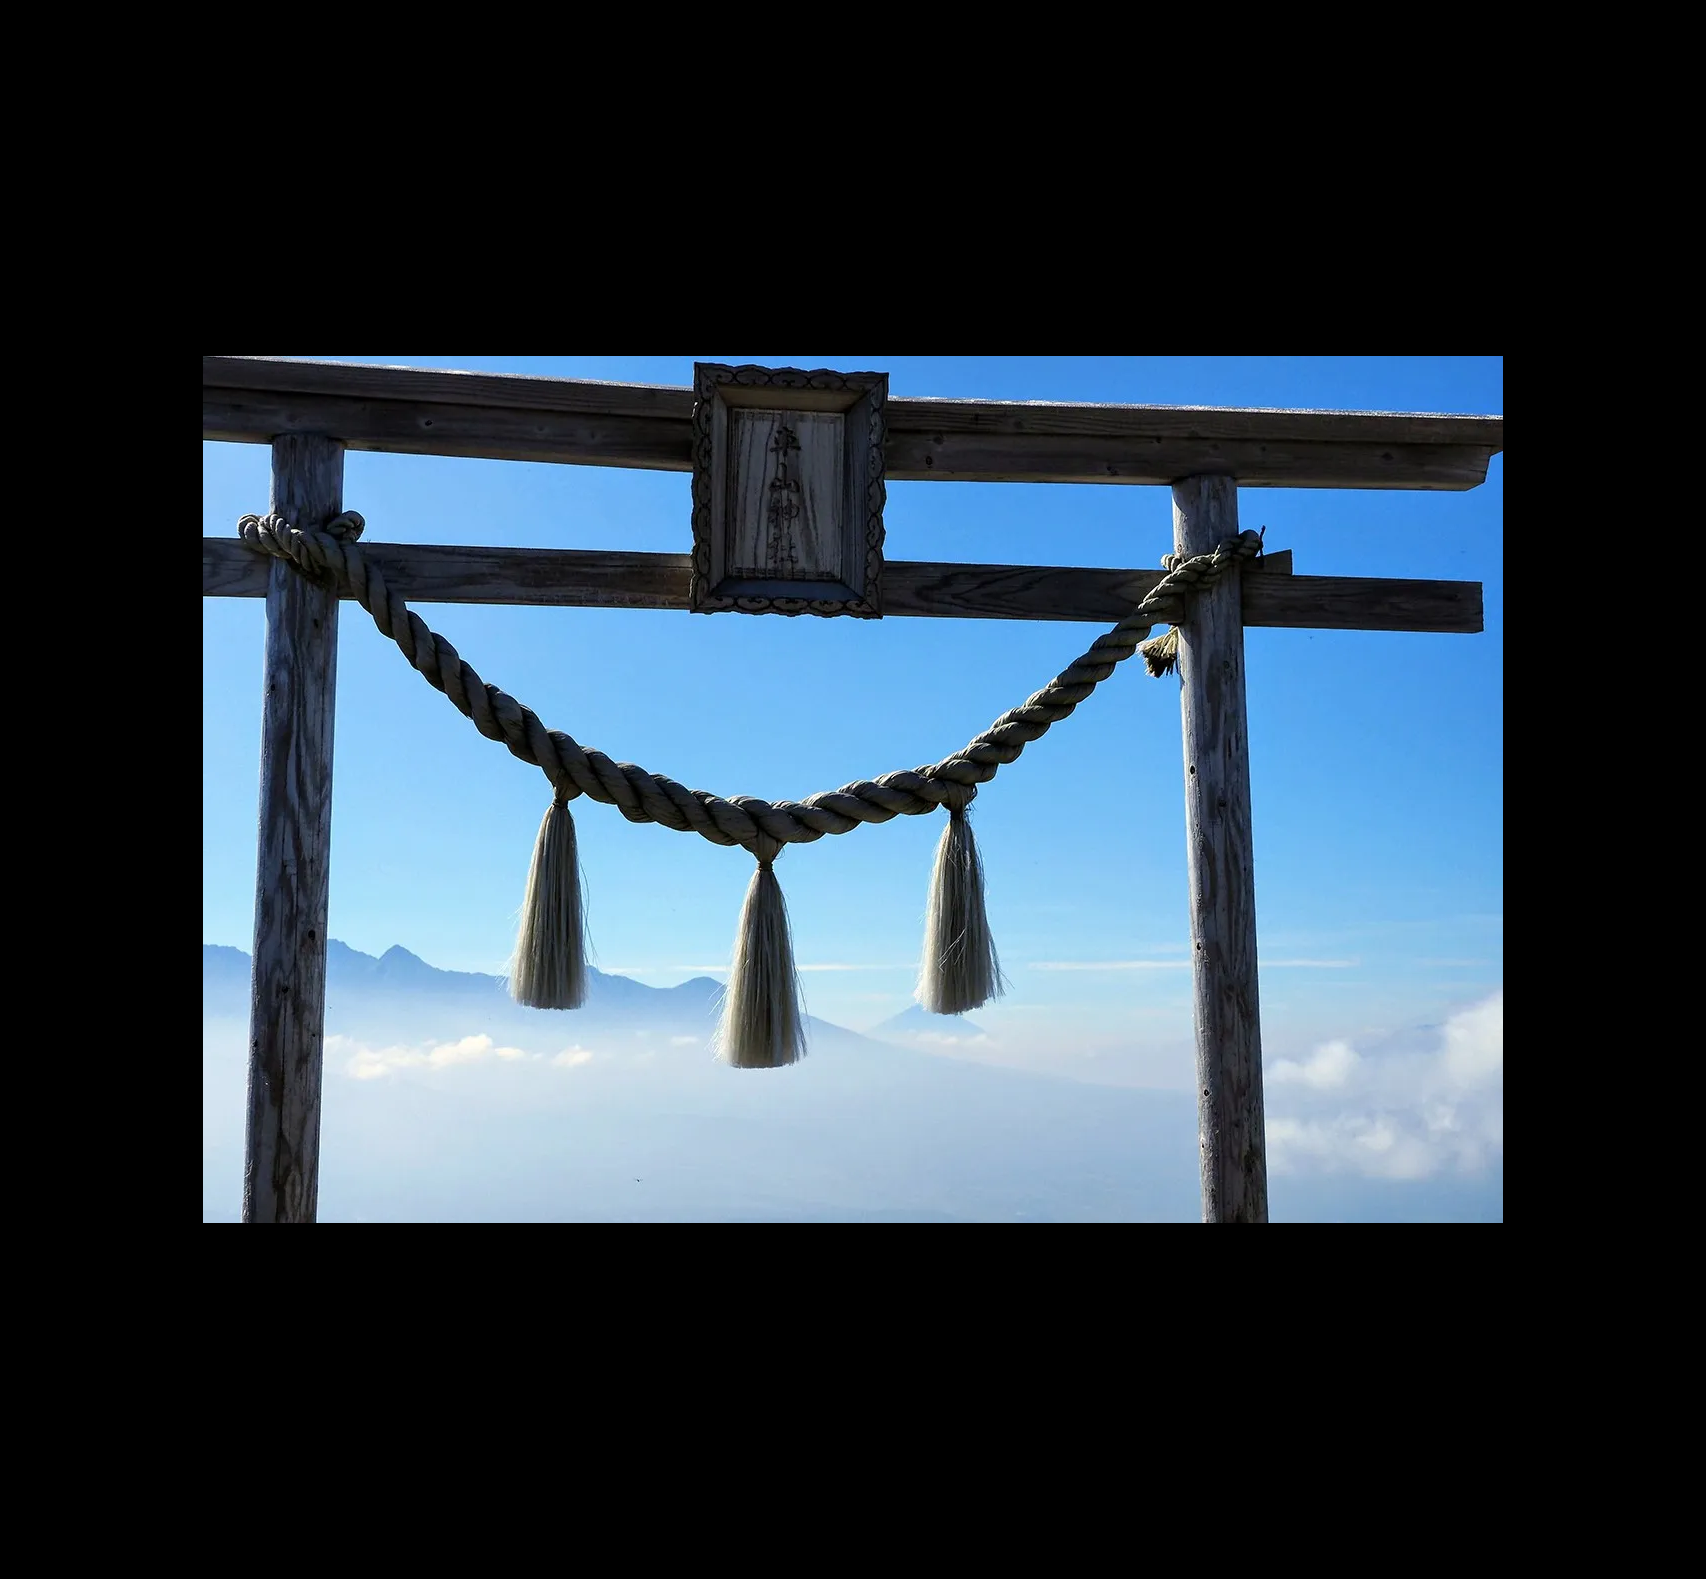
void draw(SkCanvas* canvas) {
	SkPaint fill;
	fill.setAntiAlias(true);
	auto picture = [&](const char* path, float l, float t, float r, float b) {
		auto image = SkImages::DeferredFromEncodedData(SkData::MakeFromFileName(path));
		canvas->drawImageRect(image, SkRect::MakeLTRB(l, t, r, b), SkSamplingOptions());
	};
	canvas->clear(0xFF000000);
	picture("image0.png", 203, 356, 1503, 1223);
}
